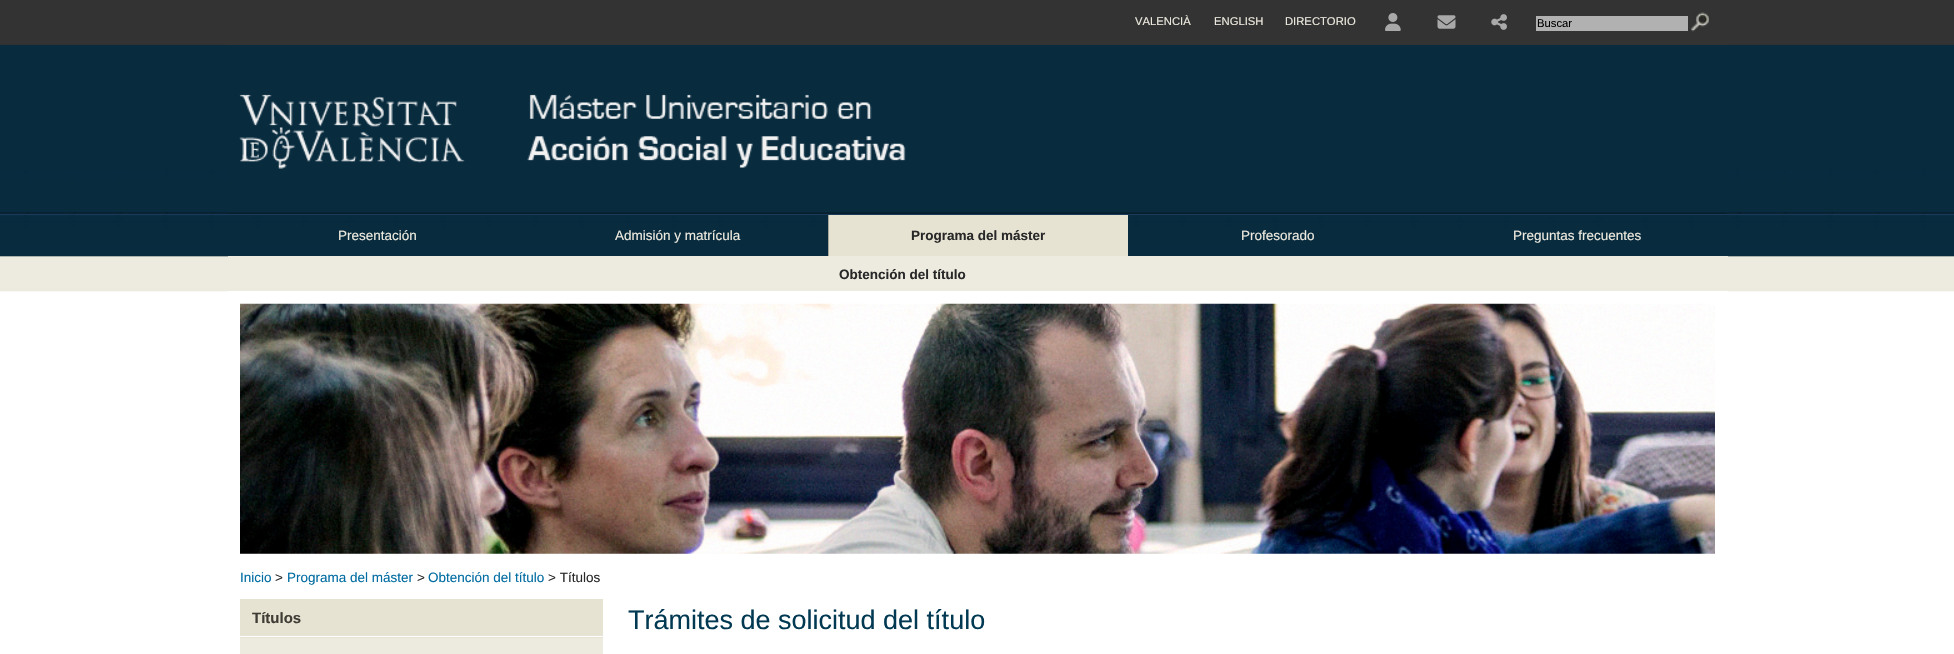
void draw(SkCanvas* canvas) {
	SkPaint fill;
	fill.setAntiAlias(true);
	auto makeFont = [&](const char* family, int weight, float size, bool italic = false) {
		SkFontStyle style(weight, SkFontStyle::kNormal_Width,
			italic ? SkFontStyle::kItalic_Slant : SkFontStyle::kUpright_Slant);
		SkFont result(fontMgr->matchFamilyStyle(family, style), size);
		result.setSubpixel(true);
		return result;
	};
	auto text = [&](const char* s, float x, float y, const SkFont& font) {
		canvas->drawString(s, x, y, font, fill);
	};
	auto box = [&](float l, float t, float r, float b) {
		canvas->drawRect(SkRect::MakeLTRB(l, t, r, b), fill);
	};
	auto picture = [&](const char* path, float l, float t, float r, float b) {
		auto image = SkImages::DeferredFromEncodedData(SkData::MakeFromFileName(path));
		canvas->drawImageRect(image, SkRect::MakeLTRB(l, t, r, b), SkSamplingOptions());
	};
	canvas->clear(0xFFFFFFFF);
	picture("image0.png", 0, 0, 1954, 292);
	fill.setColor(0xFFFFFFFF);
	box(228, 291, 1728, 292);
	fill.setColor(0xFF333333);
	box(228, 44, 1728, 45);
	picture("image1.png", 1385, 13, 1401, 31);
	picture("image2.png", 1437, 15, 1456, 29);
	picture("image3.png", 1491, 14, 1507, 30);
	fill.setColor(0xFFB1B1B1);
	box(1536, 16, 1688, 31);
	picture("image4.png", 1691, 12, 1709, 32);
	fill.setColor(0xFF082B3E);
	box(228, 45, 1728, 214);
	picture("image5.png", 227, 212, 1728, 214);
	picture("image6.png", 239, 94, 906, 169);
	box(228, 215, 1728, 216);
	fill.setColor(0xFF1A3B5A);
	box(228, 214, 1728, 215);
	fill.setColor(0xFFE6E3D2);
	box(829, 215, 1128, 256);
	fill.setColor(0xFFA6A69C);
	box(828, 215, 829, 256);
	fill.setColor(0xFFEDEADF);
	box(228, 256, 1728, 257);
	picture("image7.png", 240, 303, 1715, 554);
	box(240, 638, 603, 654);
	fill.setColor(0xFFE6E3D2);
	box(240, 599, 603, 638);
	fill.setColor(0xFFFFFFFF);
	box(240, 636, 603, 637);
	auto font1 = makeFont("Liberation Sans", 400, 11.25f);
	fill.setColor(0xFFEDEADF);
	text("VALENCIÀ", 1135, 25, font1);
	text("ENGLISH", 1214, 25, font1);
	text("DIRECTORIO", 1285, 25, font1);
	fill.setColor(0xFF000000);
	text("Buscar", 1537, 27, font1);
	auto font2 = makeFont("Liberation Sans", 400, 13.5f);
	fill.setColor(0xFFEDEADF);
	text("Presentación", 338, 240, font2);
	text("Admisión y matrícula", 615, 240, font2);
	auto font3 = makeFont("Liberation Sans", 700, 13.5f);
	fill.setColor(0xFF282828);
	text("Programa del máster", 911, 240, font3);
	fill.setColor(0xFFEDEADF);
	text("Profesorado", 1241, 240, font2);
	text("Preguntas frecuentes", 1513, 240, font2);
	fill.setColor(0xFF282828);
	text("Obtención del título", 839, 279, font3);
	fill.setColor(0xFF016CA2);
	text("Inicio", 240, 582, font2);
	fill.setColor(0xFF282828);
	text(">", 275, 582, font2);
	fill.setColor(0xFF016CA2);
	text("Programa del máster", 287, 582, font2);
	fill.setColor(0xFF282828);
	text(">", 417, 582, font2);
	fill.setColor(0xFF016CA2);
	text("Obtención del título", 428, 582, font2);
	fill.setColor(0xFF282828);
	text("> Títulos", 548, 582, font2);
	auto font4 = makeFont("Liberation Sans", 700, 15);
	fill.setColor(0xFF3F3C35);
	text("Títulos", 252, 623, font4);
	auto font5 = makeFont("Liberation Sans", 400, 27);
	fill.setColor(0xFF013952);
	text("Trámites de solicitud del título", 628, 629, font5);
}
